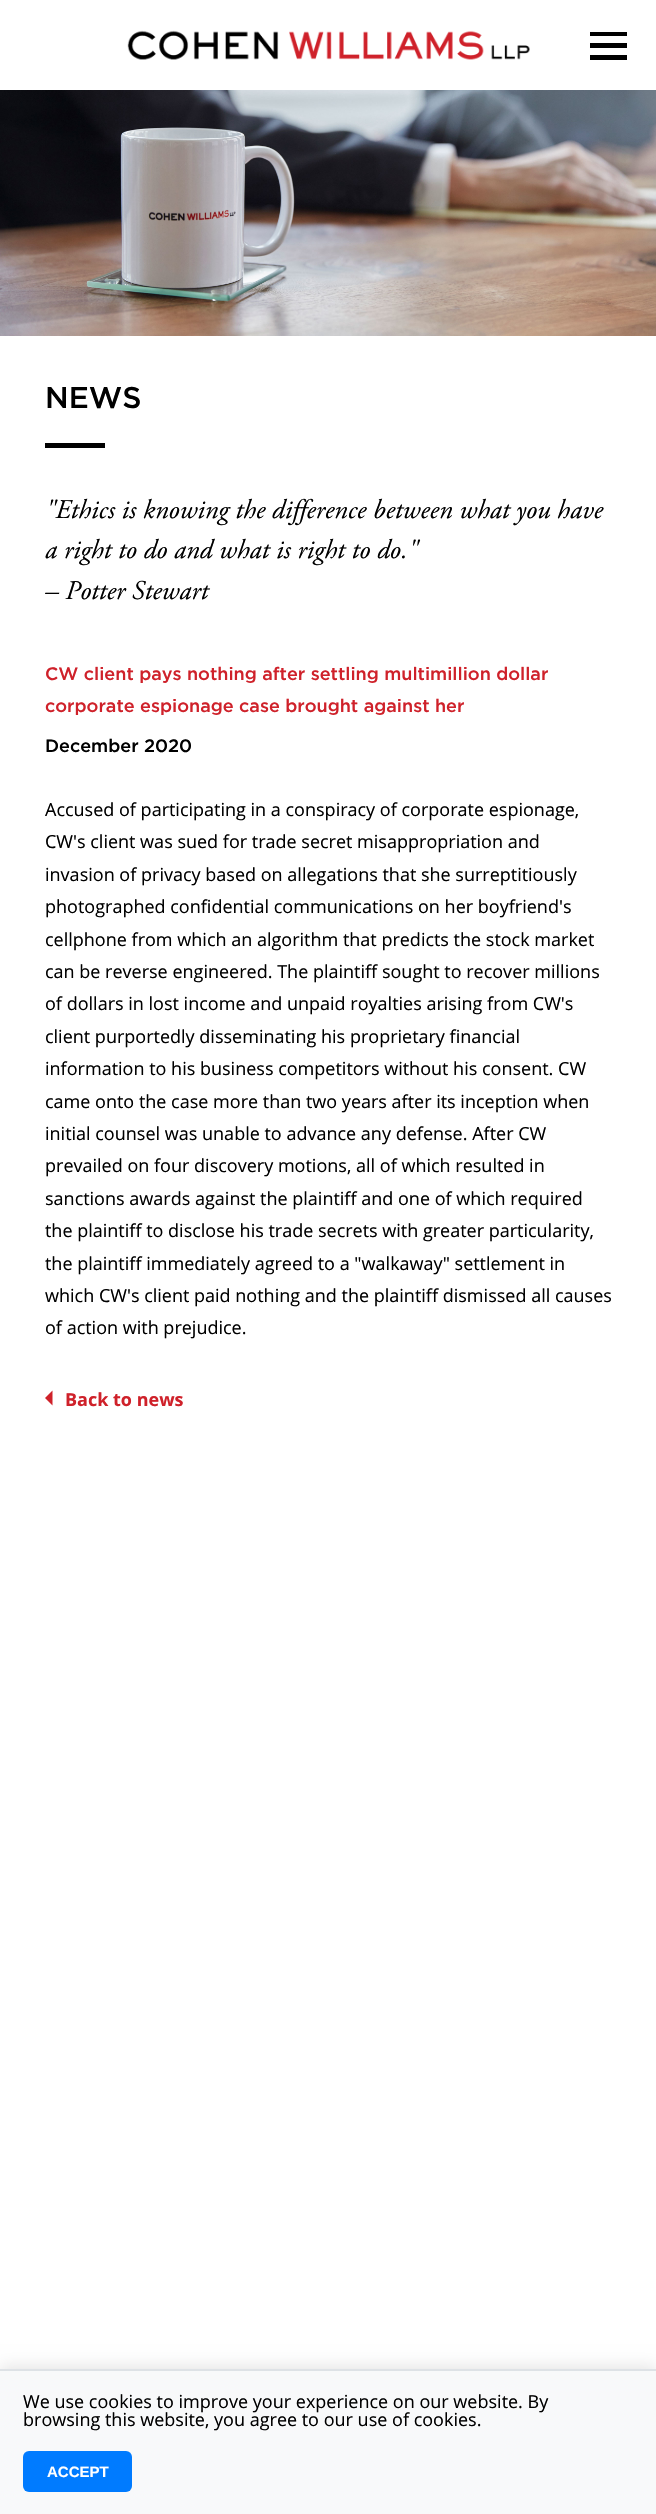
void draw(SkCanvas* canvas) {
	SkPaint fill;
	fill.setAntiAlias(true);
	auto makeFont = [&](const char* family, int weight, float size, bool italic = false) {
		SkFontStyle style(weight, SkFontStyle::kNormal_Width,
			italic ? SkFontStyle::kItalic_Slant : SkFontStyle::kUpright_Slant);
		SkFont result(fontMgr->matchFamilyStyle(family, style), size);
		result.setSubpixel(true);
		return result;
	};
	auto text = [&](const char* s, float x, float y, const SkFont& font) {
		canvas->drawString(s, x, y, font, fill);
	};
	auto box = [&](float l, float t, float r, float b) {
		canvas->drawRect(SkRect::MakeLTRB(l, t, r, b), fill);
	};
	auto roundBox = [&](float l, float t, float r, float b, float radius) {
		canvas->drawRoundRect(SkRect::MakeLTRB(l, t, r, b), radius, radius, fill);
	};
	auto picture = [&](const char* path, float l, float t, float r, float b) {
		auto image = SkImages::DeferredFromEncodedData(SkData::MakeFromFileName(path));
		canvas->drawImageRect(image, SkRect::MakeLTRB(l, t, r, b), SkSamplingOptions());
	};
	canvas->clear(0xFFFFFFFF);
	picture("image0.png", 127, 30, 530, 60);
	fill.setColor(0xFF000000);
	box(590, 32, 627, 36);
	box(590, 43, 627, 48);
	box(590, 55, 627, 60);
	picture("image1.png", 0, 90, 656, 336);
	box(45, 443, 105, 448);
	fill.setColor(0xFFCF212A);
	canvas->drawPath(SkPathBuilder().moveTo(45, 1398).lineTo(52.5f, 1405.5f).lineTo(52.5f, 1390.5f).close().detach(), fill);
	fill.setColor(0x1A000000);
	fill.setMaskFilter(SkMaskFilter::MakeBlur(kNormal_SkBlurStyle, 7.5f));
	canvas->drawRect(SkRect::MakeLTRB(0, 2366, 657, 2511), fill);
	fill.setMaskFilter(nullptr);
	fill.setColor(0xFFF8F9FA);
	box(0, 2371, 656, 2514);
	fill.setColor(0xFFDEE2E6);
	box(0, 2369, 656, 2371);
	fill.setColor(0xFF007BFF);
	roundBox(23, 2451, 132, 2492, 6);
	auto font1 = makeFont("Gotham", 500, 30);
	fill.setColor(0xFF000000);
	text("NEWS", 45, 408, font1);
	auto font2 = makeFont("Adobe Garamond", 400, 27, true);
	text("\"Ethics is knowing the difference between what you have", 45, 518, font2);
	text("a right to do and what is right to do.\"", 45, 558, font2);
	text("– Potter Stewart", 45, 599, font2);
	auto font3 = makeFont("Gotham", 500, 18);
	fill.setColor(0xFFCF212A);
	text("CW client pays nothing after settling multimillion dollar", 45, 680, font3);
	text("corporate espionage case brought against her", 45, 712, font3);
	fill.setColor(0xFF000000);
	text("December 2020", 45, 752, font3);
	auto font4 = makeFont("Open Sans", 400, 18);
	text("Accused of participating in a conspiracy of corporate espionage,", 45, 816, font4);
	text("CW's client was sued for trade secret misappropriation and", 45, 848, font4);
	text("invasion of privacy based on allegations that she surreptitiously", 45, 881, font4);
	text("photographed confidential communications on her boyfriend's", 45, 913, font4);
	text("cellphone from which an algorithm that predicts the stock market", 45, 946, font4);
	text("can be reverse engineered. The plaintiff sought to recover millions", 45, 978, font4);
	text("of dollars in lost income and unpaid royalties arising from CW's", 45, 1010, font4);
	text("client purportedly disseminating his proprietary financial", 45, 1043, font4);
	text("information to his business competitors without his consent. CW", 45, 1075, font4);
	text("came onto the case more than two years after its inception when", 45, 1108, font4);
	text("initial counsel was unable to advance any defense. After CW", 45, 1140, font4);
	text("prevailed on four discovery motions, all of which resulted in", 45, 1172, font4);
	text("sanctions awards against the plaintiff and one of which required", 45, 1205, font4);
	text("the plaintiff to disclose his trade secrets with greater particularity,", 45, 1237, font4);
	text("the plaintiff immediately agreed to a \"walkaway\" settlement in", 45, 1270, font4);
	text("which CW's client paid nothing and the plaintiff dismissed all causes", 45, 1302, font4);
	text("of action with prejudice.", 45, 1334, font4);
	auto font5 = makeFont("Open Sans", 700, 18);
	fill.setColor(0xFFCF212A);
	text("Back to news", 65, 1406, font5);
	fill.setColor(0xFF000000);
	text("We use cookies to improve your experience on our website. By", 23, 2408, font4);
	text("browsing this website, you agree to our use of cookies.", 23, 2426, font4);
	auto font6 = makeFont("Liberation Sans", 700, 15);
	fill.setColor(0xFFFFFFFF);
	text("ACCEPT", 47, 2477, font6);
}
